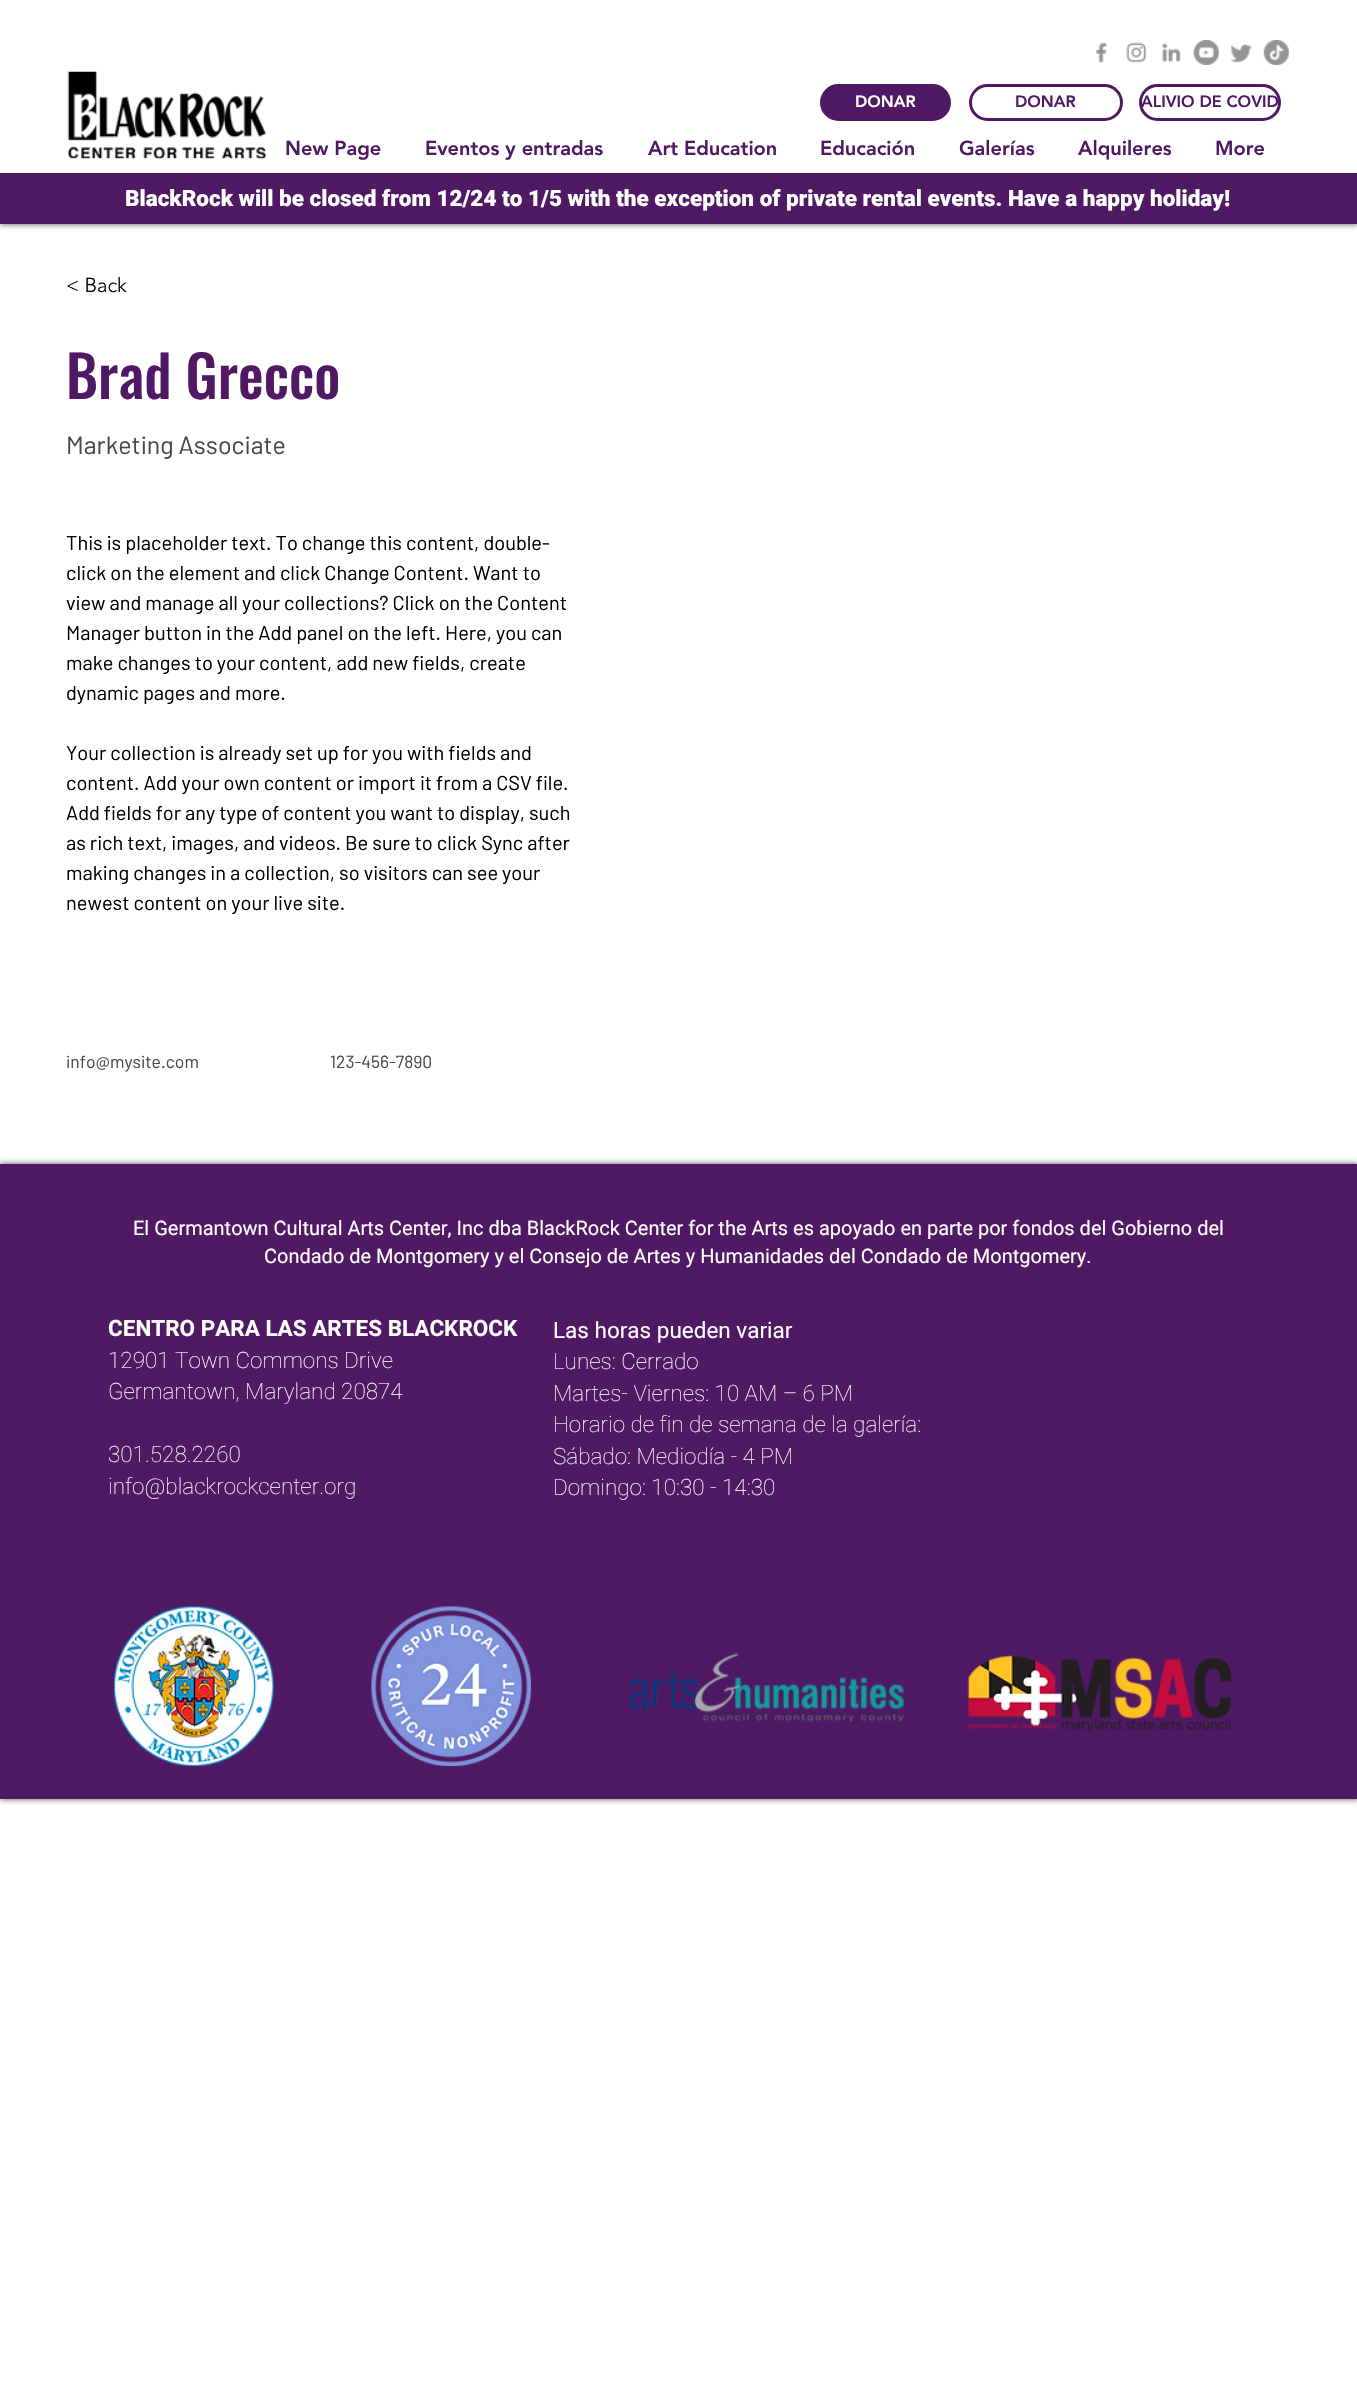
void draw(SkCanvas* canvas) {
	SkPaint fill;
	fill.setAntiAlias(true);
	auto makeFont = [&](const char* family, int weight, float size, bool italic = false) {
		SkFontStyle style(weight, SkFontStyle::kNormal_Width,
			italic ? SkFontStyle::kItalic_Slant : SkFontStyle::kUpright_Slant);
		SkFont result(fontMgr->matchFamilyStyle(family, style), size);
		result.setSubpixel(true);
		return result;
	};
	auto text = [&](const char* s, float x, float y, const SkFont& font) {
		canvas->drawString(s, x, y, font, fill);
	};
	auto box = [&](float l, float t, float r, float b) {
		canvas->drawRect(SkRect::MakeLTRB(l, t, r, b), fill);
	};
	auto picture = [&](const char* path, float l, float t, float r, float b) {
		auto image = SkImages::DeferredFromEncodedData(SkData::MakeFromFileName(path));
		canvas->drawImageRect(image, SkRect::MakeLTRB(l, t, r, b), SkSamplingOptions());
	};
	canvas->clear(0xFFFFFFFF);
	fill.setColor(0xB3000000);
	fill.setMaskFilter(SkMaskFilter::MakeBlur(kNormal_SkBlurStyle, 3));
	canvas->drawRect(SkRect::MakeLTRB(0, 0, 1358, 224), fill);
	fill.setMaskFilter(nullptr);
	fill.setColor(0xFFFFFFFF);
	box(0, 0, 1357, 173);
	picture("image0.png", 1096, 42, 1107, 63);
	picture("image1.png", 1126, 42, 1147, 63);
	picture("image2.png", 1162, 43, 1181, 62);
	picture("image3.png", 1193, 40, 1219, 65);
	picture("image4.png", 1230, 43, 1252, 63);
	picture("image5.png", 1263, 40, 1289, 65);
	picture("image6.png", 67, 71, 267, 159);
	fill.setColor(0xFF4F1964);
	canvas->drawRoundRect(SkRect::MakeLTRB(821.5f, 85.5f, 949.5f, 119.5f), 17, 17, fill);
	fill.setStyle(SkPaint::kStroke_Style);
	fill.setStrokeWidth(3);
	canvas->drawRoundRect(SkRect::MakeLTRB(821.5f, 85.5f, 949.5f, 119.5f), 17, 17, fill);
	canvas->drawRoundRect(SkRect::MakeLTRB(970.5f, 85.5f, 1121.5f, 119.5f), 17, 17, fill);
	canvas->drawRoundRect(SkRect::MakeLTRB(1140.5f, 85.5f, 1279.5f, 119.5f), 17, 17, fill);
	fill.setStyle(SkPaint::kFill_Style);
	box(0, 173, 1357, 224);
	fill.setColor(0xB3000000);
	fill.setMaskFilter(SkMaskFilter::MakeBlur(kNormal_SkBlurStyle, 3));
	canvas->drawRect(SkRect::MakeLTRB(0, 1164, 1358, 1799), fill);
	fill.setMaskFilter(nullptr);
	fill.setColor(0xFF4F1964);
	box(0, 1164, 1357, 1799);
	picture("image7.png", 113, 1606, 274, 1767);
	picture("image8.png", 371, 1606, 532, 1767);
	picture("image9.png", 629, 1653, 904, 1723);
	picture("image10.png", 967, 1655, 1232, 1733);
	auto font1 = makeFont("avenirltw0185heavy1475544", 900, 16.25f);
	fill.setColor(0xFFFFFFFF);
	text("DONAR", 855, 107, font1);
	fill.setColor(0xFF4F1964);
	text("DONAR", 1015, 107, font1);
	text("ALIVIO DE COVID", 1141, 107, font1);
	auto font2 = makeFont("avenirltw0185heavy1475544", 900, 20);
	text("New Page", 285, 155, font2);
	text("Eventos y entradas", 425, 155, font2);
	text("Art Education", 648, 155, font2);
	text("Educación", 820, 155, font2);
	text("Galerías", 959, 155, font2);
	text("Alquileres", 1078, 155, font2);
	text("More", 1215, 155, font2);
	auto font3 = makeFont("Roboto", 900, 22.5f);
	fill.setColor(0xFFFFFFFF);
	text("BlackRock will be closed from 12/24 to 1/5 with the exception of private rental events. Have a happy holiday!", 125, 206, font3);
	auto font4 = makeFont("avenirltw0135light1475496", 300, 20);
	fill.setColor(0xFF000000);
	text("< Back", 66, 292, font4);
	auto font5 = makeFont("Oswald", 500, 57.5f);
	fill.setColor(0xFF4F1964);
	text("Brad Grecco", 66, 399, font5);
	auto font6 = makeFont("Barlow", 400, 25);
	fill.setColor(0xFF474747);
	text("Marketing Associate", 66, 454, font6);
	auto font7 = makeFont("Barlow", 400, 20);
	fill.setColor(0xFF000000);
	text("This is placeholder text. To change this content, double-", 66, 550, font7);
	text("click on the element and click Change Content. Want to", 66, 580, font7);
	text("view and manage all your collections? Click on the Content", 66, 610, font7);
	text("Manager button in the Add panel on the left. Here, you can", 66, 640, font7);
	text("make changes to your content, add new fields, create", 66, 670, font7);
	text("dynamic pages and more.", 66, 700, font7);
	text("Your collection is already set up for you with fields and", 66, 760, font7);
	text("content. Add your own content or import it from a CSV file.", 66, 790, font7);
	text("Add fields for any type of content you want to display, such", 66, 820, font7);
	text("as rich text, images, and videos. Be sure to click Sync after", 66, 850, font7);
	text("making changes in a collection, so visitors can see your", 66, 880, font7);
	text("newest content on your live site.", 66, 910, font7);
	auto font8 = makeFont("Barlow", 400, 17.5f);
	fill.setColor(0xFF474747);
	text("info@mysite.com", 66, 1068, font8);
	text("123-456-7890", 330, 1068, font8);
	auto font9 = makeFont("Roboto", 400, 20);
	fill.setColor(0xFFFFFFFF);
	text("El Germantown Cultural Arts Center, Inc dba BlackRock Center for the Arts es apoyado en parte por fondos del Gobierno del", 133, 1235, font9);
	text("Condado de Montgomery y el Consejo de Artes y Humanidades del Condado de Montgomery.", 264, 1263, font9);
	auto font10 = makeFont("Roboto", 700, 22.5f);
	text("CENTRO PARA LAS ARTES BLACKROCK", 108, 1336, font10);
	auto font11 = makeFont("Roboto", 100, 22.5f);
	text("12901 Town Commons Drive", 108, 1368, font11);
	text("Germantown, Maryland 20874", 108, 1399, font11);
	text("301.528.2260", 108, 1462, font11);
	text("info@blackrockcenter.org", 108, 1494, font11);
	auto font12 = makeFont("Roboto", 400, 22.5f);
	text("Las horas pueden variar", 553, 1338, font12);
	text("Lunes: Cerrado", 553, 1369, font11);
	text("Martes- Viernes: 10 AM – 6 PM", 553, 1401, font11);
	text("Horario de fin de semana de la galería:", 553, 1432, font11);
	text("Sábado: Mediodía - 4 PM", 553, 1464, font11);
	text("Domingo: 10:30 - 14:30", 553, 1495, font11);
}
